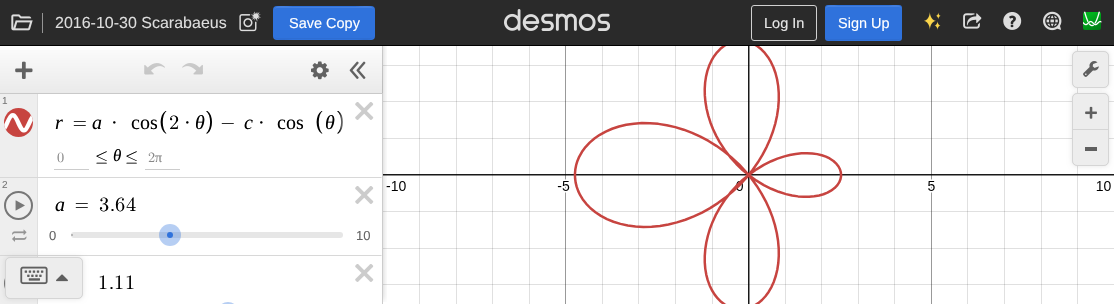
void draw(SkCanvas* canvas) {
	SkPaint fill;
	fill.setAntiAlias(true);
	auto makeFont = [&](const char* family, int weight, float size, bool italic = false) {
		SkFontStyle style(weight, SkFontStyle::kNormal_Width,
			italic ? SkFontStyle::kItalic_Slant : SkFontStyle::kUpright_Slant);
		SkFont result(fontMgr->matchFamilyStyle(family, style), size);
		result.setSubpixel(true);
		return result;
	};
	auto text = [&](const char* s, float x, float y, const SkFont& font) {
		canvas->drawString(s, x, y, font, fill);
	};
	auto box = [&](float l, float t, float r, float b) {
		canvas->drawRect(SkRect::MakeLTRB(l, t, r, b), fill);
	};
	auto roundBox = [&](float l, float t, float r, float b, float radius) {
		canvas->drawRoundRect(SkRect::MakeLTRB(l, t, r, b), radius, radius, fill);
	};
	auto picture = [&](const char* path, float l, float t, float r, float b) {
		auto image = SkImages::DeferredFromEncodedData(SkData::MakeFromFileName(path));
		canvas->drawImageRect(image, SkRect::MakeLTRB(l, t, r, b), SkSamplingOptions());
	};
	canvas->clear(0xFFFFFFFF);
	fill.setColor(0xFF2A2A2A);
	box(0, 0, 1114, 45);
	fill.setColor(0xFF000000);
	box(0, 45, 1114, 46);
	picture("image0.png", 11, 14, 33, 31);
	fill.setColor(0xFF949494);
	box(42, 13, 43, 33);
	picture("image1.png", 239, 11, 261, 32);
	fill.setColor(0xFF2F72DC);
	roundBox(273, 6, 375, 40, 4);
	fill.setColor(0xFF2D6DD3);
	canvas->drawPath(SkPathBuilder().moveTo(274, 35).cubicTo(274, 43, 290, 39, 293, 39).lineTo(355, 39).cubicTo(358, 39, 374, 43, 374, 35).cubicTo(374, 37, 373, 38, 371, 38).lineTo(277, 38).cubicTo(275, 38, 274, 37, 274, 35).close().detach(), fill);
	fill.setColor(0xFF4480E0);
	canvas->drawPath(SkPathBuilder().moveTo(277, 8).lineTo(371, 8).cubicTo(373, 8, 374, 9, 374, 11).cubicTo(374, 3, 358, 7, 355, 7).lineTo(293, 7).cubicTo(290, 7, 274, 3, 274, 11).cubicTo(274, 9, 275, 8, 277, 8).close().detach(), fill);
	picture("image2.png", 504, 9, 610, 31);
	fill.setStyle(SkPaint::kStroke_Style);
	fill.setStrokeWidth(1);
	fill.setColor(0xFFD0D0D0);
	canvas->drawRoundRect(SkRect::MakeLTRB(751.5f, 5.5f, 816.5f, 40.5f), 2.5f, 2.5f, fill);
	fill.setStyle(SkPaint::kFill_Style);
	fill.setColor(0xFF2F72DC);
	roundBox(825, 5, 902, 41, 3);
	fill.setColor(0xFF2D6DD3);
	canvas->drawPath(SkPathBuilder().moveTo(826, 37).cubicTo(826, 43, 837, 40, 840, 40).lineTo(887, 40).cubicTo(890, 40, 901, 43, 901, 37).cubicTo(901, 38, 900, 39, 899, 39).lineTo(828, 39).cubicTo(827, 39, 826, 38, 826, 37).close().detach(), fill);
	fill.setColor(0xFF4480E0);
	canvas->drawPath(SkPathBuilder().moveTo(828, 7).lineTo(899, 7).cubicTo(900, 7, 901, 8, 901, 9).cubicTo(901, 3, 890, 6, 887, 6).lineTo(840, 6).cubicTo(837, 6, 826, 3, 826, 9).cubicTo(826, 8, 827, 7, 828, 7).close().detach(), fill);
	picture("image3.png", 924, 12, 941, 30);
	picture("image4.png", 963, 13, 982, 29);
	picture("image5.png", 1003, 12, 1022, 30);
	picture("image6.png", 1043, 11, 1062, 31);
	{
		const SkColor colors[] = {0xFF007C14, 0xFF00B21D};
		const float stops[] = {0.06f, 0.75f};
		const SkPoint ends[] = {{1098, 32}, {1086, 10}};
		fill.setShader(SkGradientShader::MakeLinear(ends, colors, stops, 2, SkTileMode::kClamp));
		fill.setAlpha(255);
	}
	roundBox(1083, 12, 1101, 30, 2);
	picture("image7.png", 1083, 11, 1102, 27);
	picture("image19.png", 383, 46, 1114, 304);
	fill.setShader(nullptr);
	fill.setColor(0x1A000000);
	fill.setMaskFilter(SkMaskFilter::MakeBlur(kNormal_SkBlurStyle, 2.5f));
	canvas->drawRoundRect(SkRect::MakeLTRB(1072, 93, 1109, 166), 5, 5, fill);
	fill.setMaskFilter(nullptr);
	fill.setColor(0xFFEDEDED);
	roundBox(1072, 93, 1109, 166, 5);
	fill.setStyle(SkPaint::kStroke_Style);
	fill.setColor(0x1A000000);
	canvas->drawRoundRect(SkRect::MakeLTRB(1072.5f, 93.5f, 1108.5f, 165.5f), 4.5f, 4.5f, fill);
	fill.setStyle(SkPaint::kFill_Style);
	fill.setMaskFilter(SkMaskFilter::MakeBlur(kNormal_SkBlurStyle, 2.5f));
	canvas->drawRoundRect(SkRect::MakeLTRB(1072, 51, 1109, 88), 5, 5, fill);
	fill.setMaskFilter(nullptr);
	fill.setColor(0xFFEDEDED);
	roundBox(1072, 51, 1109, 88, 5);
	fill.setStyle(SkPaint::kStroke_Style);
	fill.setColor(0x1A000000);
	canvas->drawRoundRect(SkRect::MakeLTRB(1072.5f, 51.5f, 1108.5f, 87.5f), 4.5f, 4.5f, fill);
	picture("image8.png", 1083, 61, 1099, 77);
	fill.setStyle(SkPaint::kFill_Style);
	fill.setColor(0xFFD5D5D5);
	box(1073, 129, 1108, 130);
	picture("image9.png", 1085, 106, 1097, 119);
	fill.setColor(0xFF5F5F5F);
	box(1085, 147, 1097, 151);
	canvas->save();
	canvas->clipRect(SkRect::MakeLTRB(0, 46, 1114, 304));
	canvas->clipRect(SkRect::MakeLTRB(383, 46, 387, 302));
	fill.setColor(0x33000000);
	fill.setMaskFilter(SkMaskFilter::MakeBlur(kNormal_SkBlurStyle, 3));
	canvas->drawRect(SkRect::MakeLTRB(0, 42, 383, 300), fill);
	fill.setMaskFilter(nullptr);
	canvas->restore();
	{
		const SkColor colors[] = {0xFFFCFCFC, 0xFFEAEAEA};
		const float stops[] = {0, 1};
		const SkPoint ends[] = {{191, 46}, {191, 93}};
		fill.setShader(SkGradientShader::MakeLinear(ends, colors, stops, 2, SkTileMode::kClamp));
		fill.setAlpha(255);
	}
	box(0, 46, 383, 93);
	{
		const SkColor colors[] = {0xFFFCFCFC, 0xFFEAEAEA};
		const float stops[] = {0, 1};
		const SkPoint ends[] = {{191, 93}, {191, 140}};
		fill.setShader(SkGradientShader::MakeLinear(ends, colors, stops, 2, SkTileMode::kClamp));
		fill.setAlpha(255);
	}
	box(0, 93, 383, 94);
	fill.setShader(nullptr);
	fill.setColor(0x33000000);
	canvas->drawPath(SkPathBuilder().moveTo(383, 46).lineTo(383, 94).lineTo(382, 93).lineTo(382, 46).close().detach(), fill);
	canvas->drawPath(SkPathBuilder().moveTo(383, 94).lineTo(0, 94).lineTo(0, 93).lineTo(382, 93).close().detach(), fill);
	picture("image10.png", 15, 61, 33, 79);
	picture("image11.png", 144, 63, 165, 75);
	picture("image12.png", 182, 63, 203, 75);
	picture("image13.png", 311, 61, 329, 80);
	picture("image14.png", 349, 61, 366, 79);
	fill.setColor(0xFFCCCCCC);
	box(382, 94, 383, 304);
	fill.setColor(0xFFEEEEEE);
	box(0, 94, 37, 177);
	fill.setColor(0xFFE0E0E0);
	box(37, 94, 38, 177);
	fill.setColor(0xFFC74440);
	canvas->drawCircle(18.5f, 122.5f, 14.5f, fill);
	picture("image15.png", 4, 113, 33, 133);
	picture("image16.png", 355, 102, 374, 120);
	fill.setColor(0xFF000000);
	canvas->drawPath(SkPathBuilder().moveTo(166.5f, 111).cubicTo(161.5f, 115, 161.5f, 129, 166.5f, 133.5f).lineTo(165.5f, 133.5f).cubicTo(159, 129, 159, 115, 165.5f, 111).moveTo(206, 111).cubicTo(211.5f, 115, 211.5f, 129, 206, 133.5f).lineTo(207.5f, 133.5f).cubicTo(213.5f, 129, 213.5f, 115, 207.5f, 111).detach(), fill);
	canvas->drawPath(SkPathBuilder().moveTo(322.5f, 111).cubicTo(317.5f, 115, 317.5f, 129, 322.5f, 133.5f).lineTo(321.5f, 133.5f).cubicTo(315, 129, 315, 115, 321.5f, 111).moveTo(337, 111).cubicTo(342.5f, 115, 342.5f, 129, 337, 133.5f).lineTo(338.5f, 133.5f).cubicTo(344.5f, 129, 344.5f, 115, 338.5f, 111).detach(), fill);
	{
		const SkColor colors[] = {0x00FFFFFF, 0xFFFFFFFF};
		const float stops[] = {0, 1};
		const SkPoint ends[] = {{339, 123}, {346, 123}};
		fill.setShader(SkGradientShader::MakeLinear(ends, colors, stops, 2, SkTileMode::kClamp));
		fill.setAlpha(255);
	}
	box(339, 109, 343, 137);
	fill.setShader(nullptr);
	fill.setColor(0xFFCCCCCC);
	box(54, 169, 89, 170);
	box(145, 169, 180, 170);
	fill.setColor(0xFFD8D8D8);
	canvas->drawPath(SkPathBuilder().moveTo(0, 177).lineTo(382, 177).lineTo(381, 178).lineTo(0, 178).close().detach(), fill);
	fill.setColor(0xFFEEEEEE);
	box(0, 178, 37, 255);
	fill.setColor(0xFFE0E0E0);
	box(37, 178, 38, 255);
	fill.setStyle(SkPaint::kStroke_Style);
	fill.setStrokeWidth(2);
	fill.setColor(0xFF777777);
	canvas->drawCircle(18.5f, 205.5f, 13.5f, fill);
	picture("image17.png", 15, 200, 25, 211);
	picture("image18.png", 12, 229, 27, 242);
	picture("image16.png", 355, 186, 374, 204);
	fill.setStyle(SkPaint::kFill_Style);
	fill.setColor(0xFFE6E6E6);
	roundBox(71, 232, 343, 238, 3);
	fill.setColor(0x592F72DC);
	canvas->drawCircle(170, 235, 11, fill);
	fill.setColor(0xFF2F72DC);
	canvas->drawCircle(170, 235, 3, fill);
	fill.setColor(0x33000000);
	box(71, 234, 73, 236);
	fill.setColor(0xFFD8D8D8);
	canvas->drawPath(SkPathBuilder().moveTo(0, 255).lineTo(382, 255).lineTo(381, 256).lineTo(0, 256).close().detach(), fill);
	fill.setColor(0xFFEEEEEE);
	box(0, 256, 37, 304);
	fill.setColor(0xFFE0E0E0);
	box(37, 256, 38, 304);
	fill.setStyle(SkPaint::kStroke_Style);
	fill.setColor(0xFF777777);
	canvas->drawCircle(18.5f, 283.5f, 13.5f, fill);
	picture("image16.png", 355, 264, 374, 282);
	fill.setStyle(SkPaint::kFill_Style);
	fill.setColor(0xFFB6CEF3);
	canvas->drawPath(SkPathBuilder().moveTo(228, 302).cubicTo(234, 302, 239, 307, 239, 313).lineTo(239, 304).lineTo(217, 304).lineTo(217, 313).cubicTo(217, 307, 222, 302, 228, 302).close().detach(), fill);
	fill.setColor(0x1A000000);
	fill.setMaskFilter(SkMaskFilter::MakeBlur(kNormal_SkBlurStyle, 2.5f));
	canvas->drawRoundRect(SkRect::MakeLTRB(5, 257, 83, 299), 5, 5, fill);
	fill.setMaskFilter(nullptr);
	fill.setColor(0xFFEDEDED);
	roundBox(5, 257, 83, 299, 5);
	fill.setStyle(SkPaint::kStroke_Style);
	fill.setStrokeWidth(1);
	fill.setColor(0x1A000000);
	canvas->drawRoundRect(SkRect::MakeLTRB(5.5f, 257.5f, 82.5f, 298.5f), 4.5f, 4.5f, fill);
	picture("image20.png", 20, 266, 48, 285);
	picture("image21.png", 56, 274, 68, 282);
	auto font1 = makeFont("Liberation Sans", 400, 16);
	fill.setStyle(SkPaint::kFill_Style);
	fill.setColor(0xFFDDDDDD);
	text("2016-10-30 Scarabaeus", 55, 28, font1);
	auto font2 = makeFont("Liberation Sans", 400, 14.5f);
	fill.setColor(0xFFFFFFFF);
	text("Save Copy", 289, 28, font2);
	fill.setColor(0xFFE5E5E5);
	text("Log In", 764, 28, font2);
	fill.setColor(0xFFFFFFFF);
	text("Sign Up", 838, 28, font2);
	auto font3 = makeFont("Liberation Sans", 400, 10);
	fill.setColor(0xFF777777);
	text("1", 2, 104, font3);
	auto font4 = makeFont("Liberation Serif", 400, 20, true);
	fill.setColor(0xFF000000);
	text("r", 55, 129, font4);
	auto font5 = makeFont("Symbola", 400, 20);
	text("=", 72, 129, font5);
	text("a", 92, 129, font4);
	auto font6 = makeFont("Liberation Serif", 400, 20);
	text("·", 111, 129, font6);
	text("cos", 131, 129, font6);
	text("2", 169, 129, font5);
	text("·", 184, 129, font6);
	text("θ", 195, 129, font4);
	text("−", 220, 129, font5);
	text("c", 244, 129, font4);
	text("·", 258, 129, font6);
	text("cos", 277, 129, font6);
	text("θ", 325, 129, font4);
	auto font7 = makeFont("Symbola", 400, 14);
	fill.setColor(0xFF878787);
	text("0", 57, 162, font7);
	auto font8 = makeFont("Symbola", 400, 17);
	fill.setColor(0xFF000000);
	text("≤", 95, 161, font8);
	auto font9 = makeFont("Liberation Serif", 400, 17, true);
	text("θ", 113, 161, font9);
	text("≤", 125, 161, font8);
	fill.setColor(0xFF878787);
	text("2", 148, 162, font7);
	auto font10 = makeFont("Liberation Serif", 400, 14);
	text("π", 155, 162, font10);
	fill.setColor(0xFF777777);
	text("2", 2, 188, font3);
	fill.setColor(0xFF000000);
	text("a", 55, 211, font4);
	text("=", 74, 211, font5);
	text("3", 99, 211, font5);
	text("6", 115, 211, font5);
	text("4", 126, 211, font5);
	text(".", 110, 211, font5);
	auto font11 = makeFont("Liberation Sans", 400, 13);
	fill.setColor(0xFF666666);
	text("0", 49, 240, font11);
	text("10", 356, 240, font11);
	fill.setColor(0xFF000000);
	text("1", 98, 289, font5);
	text(".", 109, 289, font5);
	text("1", 114, 289, font5);
	text("1", 125, 289, font5);
}
